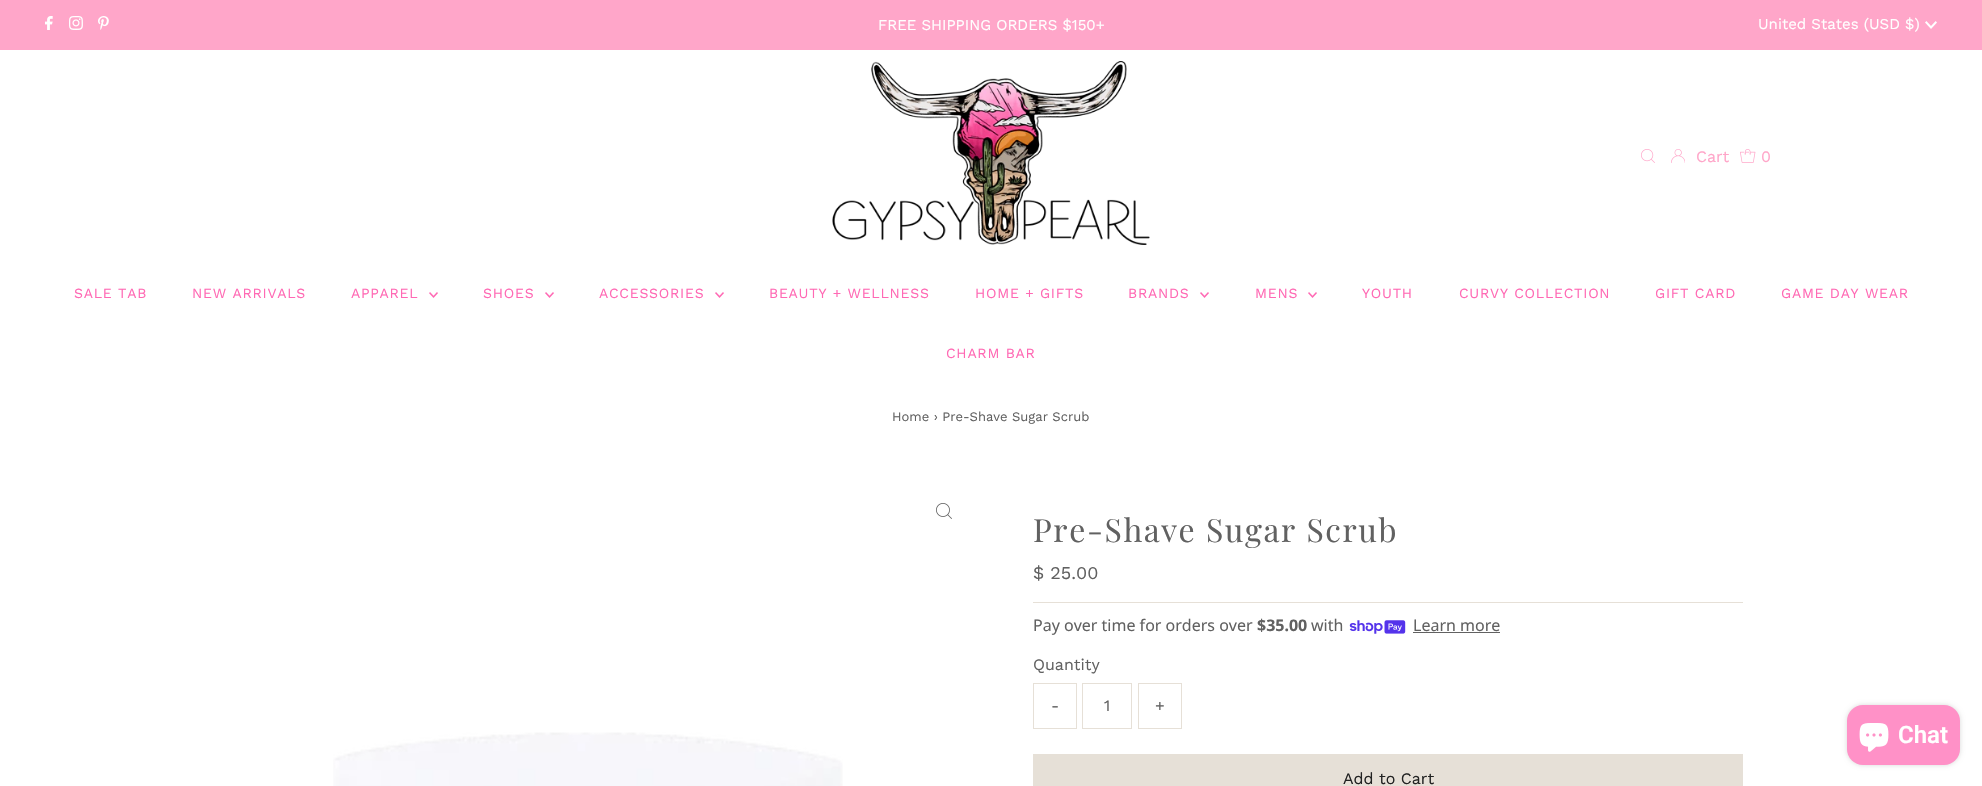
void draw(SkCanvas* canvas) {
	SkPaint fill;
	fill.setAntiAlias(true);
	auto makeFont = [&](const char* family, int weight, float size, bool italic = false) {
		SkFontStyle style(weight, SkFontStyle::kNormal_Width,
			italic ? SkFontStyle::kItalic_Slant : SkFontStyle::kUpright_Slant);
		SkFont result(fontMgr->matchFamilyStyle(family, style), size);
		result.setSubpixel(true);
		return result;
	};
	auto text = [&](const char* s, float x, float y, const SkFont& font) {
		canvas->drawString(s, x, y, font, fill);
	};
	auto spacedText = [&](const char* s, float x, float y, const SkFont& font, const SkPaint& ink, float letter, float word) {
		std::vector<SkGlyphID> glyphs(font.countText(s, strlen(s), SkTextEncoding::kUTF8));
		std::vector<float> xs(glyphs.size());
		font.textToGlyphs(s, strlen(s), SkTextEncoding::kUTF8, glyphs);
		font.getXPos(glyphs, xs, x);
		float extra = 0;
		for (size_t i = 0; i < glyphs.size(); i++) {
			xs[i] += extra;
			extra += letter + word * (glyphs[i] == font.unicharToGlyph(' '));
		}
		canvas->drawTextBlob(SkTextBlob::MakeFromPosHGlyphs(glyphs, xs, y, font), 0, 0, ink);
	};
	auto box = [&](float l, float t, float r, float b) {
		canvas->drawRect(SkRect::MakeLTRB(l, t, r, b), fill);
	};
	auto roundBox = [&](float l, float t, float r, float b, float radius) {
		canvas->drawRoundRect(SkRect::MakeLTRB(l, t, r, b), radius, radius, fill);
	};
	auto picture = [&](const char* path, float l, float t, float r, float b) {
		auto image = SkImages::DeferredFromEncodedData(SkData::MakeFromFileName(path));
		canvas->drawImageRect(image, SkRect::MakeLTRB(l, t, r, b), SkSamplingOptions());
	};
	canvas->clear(0xFFFFFFFF);
	fill.setColor(0xFFFFA6C9);
	box(0, 0, 1982, 50);
	picture("image0.png", 45, 16, 53, 30);
	picture("image1.png", 69, 16, 83, 30);
	picture("image2.png", 98, 16, 109, 30);
	picture("image3.png", 1925, 21, 1937, 29);
	picture("image4.png", 832, 61, 1150, 245);
	picture("image5.png", 1641, 149, 1655, 163);
	picture("image6.png", 1671, 149, 1685, 163);
	picture("image7.png", 1740, 149, 1756, 163);
	picture("image8.png", 429, 292, 438, 298);
	picture("image8.png", 545, 292, 554, 298);
	picture("image8.png", 715, 292, 724, 298);
	picture("image8.png", 1200, 292, 1209, 298);
	picture("image8.png", 1308, 292, 1317, 298);
	picture("image9.png", 936, 503, 952, 519);
	picture("image10.png", 333, 732, 843, 786);
	fill.setColor(0xFFE6E0D7);
	box(1033, 602, 1743, 603);
	picture("image11.png", 1349, 620, 1406, 634);
	fill.setColor(0xFF616161);
	box(1413, 632, 1500, 633);
	fill.setStyle(SkPaint::kStroke_Style);
	fill.setStrokeWidth(1);
	fill.setColor(0xFFE6E0D7);
	canvas->drawRect(SkRect::MakeLTRB(1033.5f, 683.5f, 1076.5f, 728.5f), fill);
	canvas->drawRect(SkRect::MakeLTRB(1082.5f, 683.5f, 1131.5f, 728.5f), fill);
	canvas->drawRect(SkRect::MakeLTRB(1138.5f, 683.5f, 1181.5f, 728.5f), fill);
	fill.setStyle(SkPaint::kFill_Style);
	box(1033, 754, 1743, 786);
	fill.setColor(0x26000000);
	fill.setMaskFilter(SkMaskFilter::MakeBlur(kNormal_SkBlurStyle, 2.5f));
	canvas->drawRoundRect(SkRect::MakeLTRB(1847, 705, 1960, 765), 16, 16, fill);
	fill.setMaskFilter(nullptr);
	fill.setColor(0xFFFF91C7);
	roundBox(1847, 705, 1960, 765, 16);
	picture("image12.png", 1859, 723, 1889, 752);
	auto font1 = makeFont("Work Sans", 400, 15);
	fill.setColor(0xFFFFFFFF);
	text("FREE SHIPPING ORDERS $150+", 878, 30, font1);
	text("United States (USD $)", 1758, 29, font1);
	auto font2 = makeFont("Work Sans", 400, 16);
	fill.setColor(0xFFFFA6C9);
	text("Cart", 1696, 162, font2);
	text("0", 1761, 162, font2);
	auto font3 = makeFont("Work Sans", 400, 14);
	fill.setColor(0xFFFF69B4);
	spacedText("SALE TAB", 74, 298, font3, fill, 0.75f, 0);
	spacedText("NEW ARRIVALS", 192, 298, font3, fill, 0.75f, 0);
	spacedText("APPAREL", 351, 298, font3, fill, 0.75f, 0);
	spacedText("SHOES", 483, 298, font3, fill, 0.75f, 0);
	spacedText("ACCESSORIES", 599, 298, font3, fill, 0.75f, 0);
	spacedText("BEAUTY + WELLNESS", 769, 298, font3, fill, 0.75f, 0);
	spacedText("HOME + GIFTS", 975, 298, font3, fill, 0.75f, 0);
	spacedText("BRANDS", 1128, 298, font3, fill, 0.75f, 0);
	spacedText("MENS", 1255, 298, font3, fill, 0.75f, 0);
	spacedText("YOUTH", 1362, 298, font3, fill, 0.75f, 0);
	spacedText("CURVY COLLECTION", 1459, 298, font3, fill, 0.75f, 0);
	spacedText("GIFT CARD", 1655, 298, font3, fill, 0.75f, 0);
	spacedText("GAME DAY WEAR", 1781, 298, font3, fill, 0.75f, 0);
	spacedText("CHARM BAR", 946, 358, font3, fill, 0.75f, 0);
	auto font4 = makeFont("Work Sans", 400, 13);
	fill.setColor(0xFF616161);
	text("Home › Pre-Shave Sugar Scrub", 892, 421, font4);
	auto font5 = makeFont("Playfair Display", 400, 32);
	spacedText("Pre-Shave Sugar Scrub", 1033, 542, font5, fill, 1.6f, 0);
	auto font6 = makeFont("Work Sans", 400, 18);
	text("$ 25.00", 1033, 579, font6);
	auto font7 = makeFont("Noto Sans", 400, 16);
	text("Pay over time for orders over", 1033, 631, font7);
	auto font8 = makeFont("Noto Sans", 700, 16);
	text("$35.00", 1257, 631, font8);
	text("with", 1311, 631, font7);
	text("Learn more", 1413, 631, font7);
	text("Quantity", 1033, 670, font2);
	text("-", 1051, 711, font2);
	text("1", 1104, 711, font2);
	text("+", 1155, 711, font2);
	fill.setColor(0xFF222222);
	text("Add to Cart", 1343, 784, font2);
	auto font9 = makeFont("Roboto", 600, 24);
	fill.setColor(0xFFFFFFFF);
	text("Chat", 1898, 743, font9);
}
